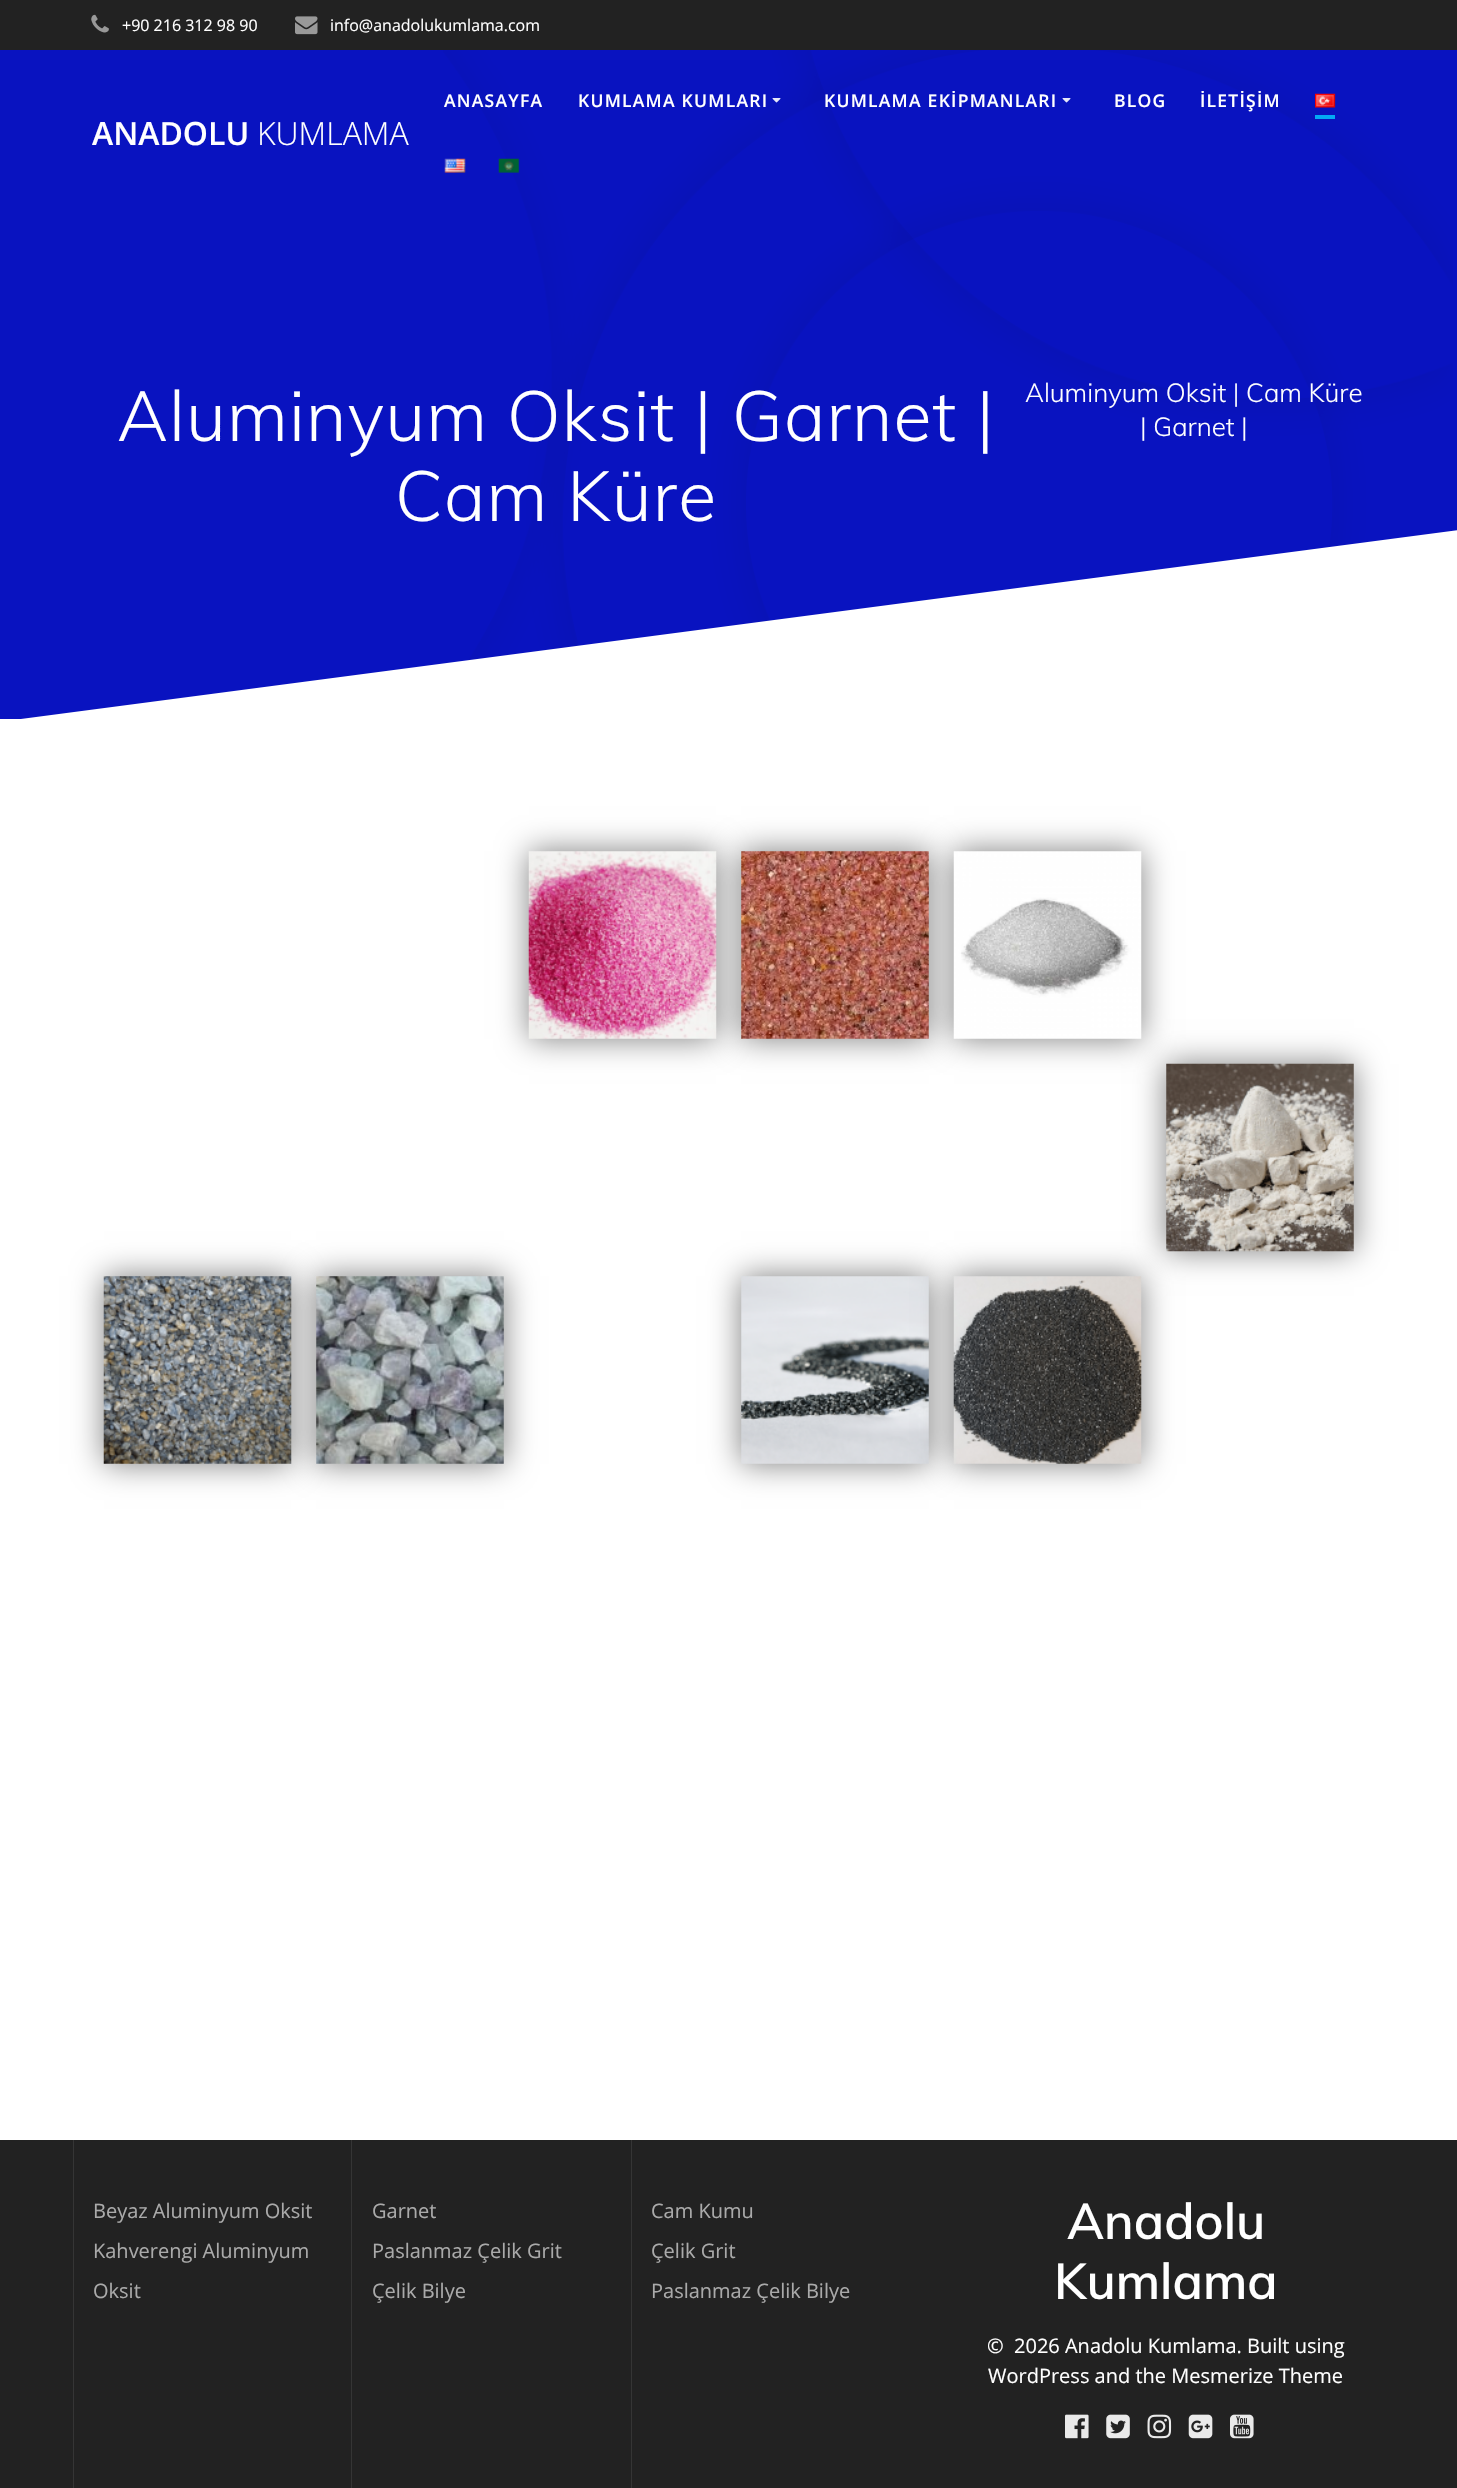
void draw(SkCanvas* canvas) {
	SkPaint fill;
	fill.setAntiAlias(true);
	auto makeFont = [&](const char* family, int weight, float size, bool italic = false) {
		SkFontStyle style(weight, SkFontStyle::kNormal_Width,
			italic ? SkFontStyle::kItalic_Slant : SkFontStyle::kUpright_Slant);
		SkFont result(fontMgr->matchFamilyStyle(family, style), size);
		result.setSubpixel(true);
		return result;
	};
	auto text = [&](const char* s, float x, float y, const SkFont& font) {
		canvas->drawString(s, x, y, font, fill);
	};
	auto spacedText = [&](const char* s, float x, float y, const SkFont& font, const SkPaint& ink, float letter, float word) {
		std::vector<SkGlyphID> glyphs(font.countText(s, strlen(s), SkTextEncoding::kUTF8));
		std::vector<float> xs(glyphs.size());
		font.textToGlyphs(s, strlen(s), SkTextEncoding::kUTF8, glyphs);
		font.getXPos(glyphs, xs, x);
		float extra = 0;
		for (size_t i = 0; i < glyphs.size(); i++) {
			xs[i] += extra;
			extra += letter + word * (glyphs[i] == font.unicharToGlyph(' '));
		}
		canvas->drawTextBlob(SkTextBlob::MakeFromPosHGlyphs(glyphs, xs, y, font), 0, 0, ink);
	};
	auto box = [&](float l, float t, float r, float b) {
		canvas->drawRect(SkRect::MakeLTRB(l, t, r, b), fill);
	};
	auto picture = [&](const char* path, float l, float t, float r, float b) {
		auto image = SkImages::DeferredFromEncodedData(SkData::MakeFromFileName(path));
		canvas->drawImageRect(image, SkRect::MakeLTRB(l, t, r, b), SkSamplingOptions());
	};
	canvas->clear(0xFFFFFFFF);
	fill.setColor(0xFF222222);
	box(0, 0, 1457, 50);
	picture("image0.png", 91, 14, 109, 33);
	picture("image1.png", 295, 16, 318, 35);
	fill.setColor(0xFF0913C0);
	box(0, 50, 1457, 719);
	picture("image7.png", 443, 50, 1453, 661);
	picture("image2.png", 772, 98, 781, 103);
	picture("image3.png", 1062, 98, 1071, 103);
	fill.setColor(0xFF03A9F4);
	box(1315, 115, 1335, 119);
	picture("image4.png", 1315, 93, 1336, 108);
	picture("image5.png", 444, 158, 466, 173);
	picture("image6.png", 498, 158, 519, 173);
	canvas->save();
	canvas->clipRect(SkRect::MakeLTRB(0, 529, 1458, 721));
	fill.setColor(0xFFFFFFFF);
	canvas->drawPath(SkPathBuilder().moveTo(-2, 722).lineTo(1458, 722).lineTo(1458, 530).close().detach(), fill);
	canvas->restore();
	fill.setColor(0x80000000);
	fill.setMaskFilter(SkMaskFilter::MakeBlur(kNormal_SkBlurStyle, 15));
	canvas->drawRect(SkRect::MakeLTRB(529, 851, 716, 1039), fill);
	fill.setMaskFilter(nullptr);
	picture("image8.png", 528, 851, 717, 1039);
	fill.setMaskFilter(SkMaskFilter::MakeBlur(kNormal_SkBlurStyle, 15));
	canvas->drawRect(SkRect::MakeLTRB(741, 851, 929, 1039), fill);
	fill.setMaskFilter(nullptr);
	picture("image9.png", 741, 851, 929, 1039);
	fill.setMaskFilter(SkMaskFilter::MakeBlur(kNormal_SkBlurStyle, 15));
	canvas->drawRect(SkRect::MakeLTRB(741, 1276, 929, 1464), fill);
	fill.setMaskFilter(nullptr);
	picture("image10.png", 741, 1276, 929, 1464);
	fill.setMaskFilter(SkMaskFilter::MakeBlur(kNormal_SkBlurStyle, 15));
	canvas->drawRect(SkRect::MakeLTRB(954, 851, 1141, 1039), fill);
	fill.setMaskFilter(nullptr);
	picture("image11.png", 953, 851, 1142, 1039);
	fill.setMaskFilter(SkMaskFilter::MakeBlur(kNormal_SkBlurStyle, 15));
	canvas->drawRect(SkRect::MakeLTRB(954, 1276, 1141, 1464), fill);
	fill.setMaskFilter(nullptr);
	picture("image12.png", 953, 1276, 1142, 1464);
	fill.setMaskFilter(SkMaskFilter::MakeBlur(kNormal_SkBlurStyle, 15));
	canvas->drawRect(SkRect::MakeLTRB(1166, 1064, 1354, 1251), fill);
	fill.setMaskFilter(nullptr);
	picture("image13.png", 1166, 1063, 1354, 1252);
	fill.setMaskFilter(SkMaskFilter::MakeBlur(kNormal_SkBlurStyle, 15));
	canvas->drawRect(SkRect::MakeLTRB(104, 1276, 291, 1464), fill);
	fill.setMaskFilter(nullptr);
	picture("image14.png", 103, 1276, 292, 1464);
	fill.setMaskFilter(SkMaskFilter::MakeBlur(kNormal_SkBlurStyle, 15));
	canvas->drawRect(SkRect::MakeLTRB(316, 1276, 504, 1464), fill);
	fill.setMaskFilter(nullptr);
	picture("image15.png", 316, 1276, 504, 1464);
	fill.setColor(0xFF222222);
	box(0, 2140, 1457, 2488);
	fill.setColor(0xFF353535);
	box(73, 2140, 74, 2488);
	box(351, 2140, 352, 2488);
	box(631, 2140, 632, 2488);
	picture("image16.png", 1065, 2414, 1089, 2439);
	picture("image17.png", 1106, 2414, 1130, 2439);
	picture("image18.png", 1147, 2414, 1172, 2439);
	picture("image19.png", 1188, 2414, 1213, 2439);
	picture("image20.png", 1230, 2414, 1254, 2439);
	auto font1 = makeFont("Open Sans", 400, 16);
	fill.setColor(0xFFFFFFFF);
	text("+90 216 312 98 90", 122, 31, font1);
	text("info@anadolukumlama.com", 330, 31, font1);
	auto font2 = makeFont("Open Sans", 600, 17.5f);
	spacedText("ANASAYFA", 444, 107, font2, fill, 1.25f, 0);
	spacedText("KUMLAMA KUMLARI", 578, 107, font2, fill, 1.25f, 0);
	spacedText("KUMLAMA EKİPMANLARI", 824, 107, font2, fill, 1.25f, 0);
	spacedText("BLOG", 1114, 107, font2, fill, 1.25f, 0);
	spacedText("İLETİŞİM", 1200, 107, font2, fill, 1.25f, 0);
	auto font3 = makeFont("Open Sans", 600, 32);
	text("ANADOLU", 92, 145, font3);
	auto font4 = makeFont("Open Sans", 300, 32);
	text("KUMLAMA", 257, 145, font4);
	auto font5 = makeFont("Muli", 300, 70);
	spacedText("Aluminyum Oksit | Garnet |", 117, 441, font5, fill, 1.1f, 0);
	spacedText("Cam Küre", 395, 521, font5, fill, 1.1f, 0);
	auto font6 = makeFont("Muli", 300, 26);
	text("Aluminyum Oksit | Cam Küre", 1025, 402, font6);
	text("| Garnet |", 1140, 436, font6);
	auto font7 = makeFont("Open Sans", 400, 20);
	fill.setColor(0xFFAAAAAA);
	text("Beyaz Aluminyum Oksit", 93, 2218, font7);
	text("Kahverengi Aluminyum", 93, 2258, font7);
	text("Oksit", 93, 2298, font7);
	text("Garnet", 372, 2218, font7);
	text("Paslanmaz Çelik Grit", 372, 2258, font7);
	text("Çelik Bilye", 372, 2298, font7);
	text("Cam Kumu", 651, 2218, font7);
	text("Çelik Grit", 651, 2258, font7);
	text("Paslanmaz Çelik Bilye", 651, 2298, font7);
	auto font8 = makeFont("Muli", 600, 50);
	fill.setColor(0xFFFFFFFF);
	text("Anadolu", 1067, 2239, font8);
	text("Kumlama", 1054, 2299, font8);
	text("©  2026 Anadolu Kumlama. Built using", 987, 2353, font7);
	text("WordPress and the Mesmerize Theme", 988, 2383, font7);
}
